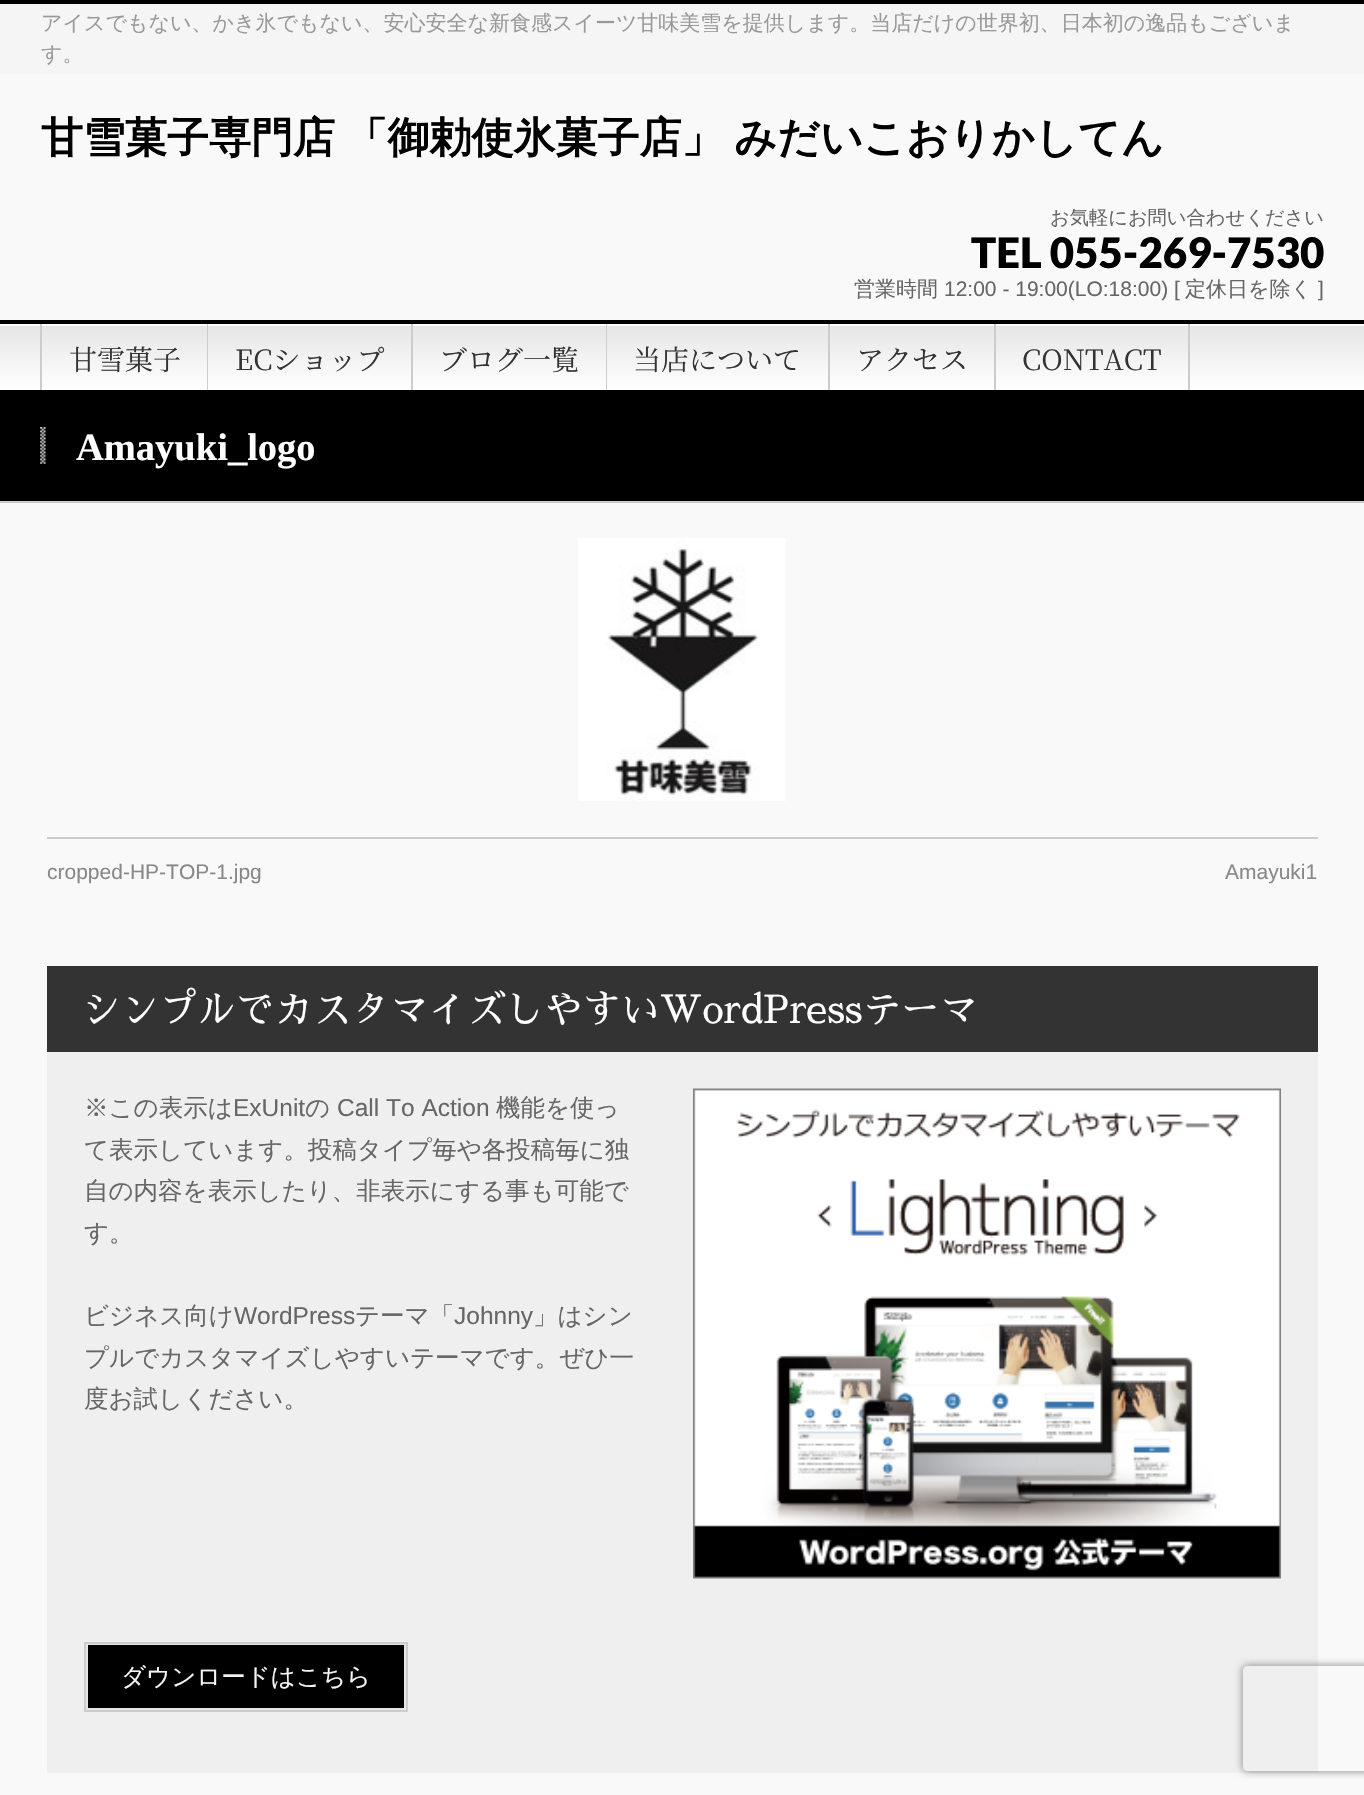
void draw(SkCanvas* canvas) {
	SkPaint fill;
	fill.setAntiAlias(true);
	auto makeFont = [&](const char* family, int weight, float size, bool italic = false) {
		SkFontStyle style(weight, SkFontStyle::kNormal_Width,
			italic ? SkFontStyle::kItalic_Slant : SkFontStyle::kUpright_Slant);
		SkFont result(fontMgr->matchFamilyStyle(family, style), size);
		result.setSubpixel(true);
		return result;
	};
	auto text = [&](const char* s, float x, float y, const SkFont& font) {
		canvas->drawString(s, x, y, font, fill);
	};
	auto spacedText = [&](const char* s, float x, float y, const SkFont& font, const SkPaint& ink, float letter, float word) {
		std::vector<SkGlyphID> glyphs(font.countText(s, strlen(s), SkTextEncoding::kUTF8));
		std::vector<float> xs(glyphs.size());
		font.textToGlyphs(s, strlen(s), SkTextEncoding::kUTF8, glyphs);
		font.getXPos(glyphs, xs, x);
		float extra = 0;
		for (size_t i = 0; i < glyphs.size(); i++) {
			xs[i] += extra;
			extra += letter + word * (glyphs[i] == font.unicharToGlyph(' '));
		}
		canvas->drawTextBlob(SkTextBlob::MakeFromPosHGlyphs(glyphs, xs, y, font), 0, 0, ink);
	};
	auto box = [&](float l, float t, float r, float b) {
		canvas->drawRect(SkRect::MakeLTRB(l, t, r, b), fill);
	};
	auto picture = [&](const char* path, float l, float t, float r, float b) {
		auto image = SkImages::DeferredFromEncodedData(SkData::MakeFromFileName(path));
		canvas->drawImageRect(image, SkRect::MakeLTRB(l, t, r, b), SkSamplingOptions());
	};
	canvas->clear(0xFFF9F9F9);
	fill.setColor(0xFFF5F5F5);
	box(0, 4, 1364, 74);
	fill.setColor(0xFF000000);
	box(0, 0, 1364, 4);
	{
		const SkColor colors[] = {0xFFE5E5E5, 0xFFFFFFFF};
		const float stops[] = {0, 1};
		const SkPoint ends[] = {{683, 324}, {683, 390}};
		fill.setShader(SkGradientShader::MakeLinear(ends, colors, stops, 2, SkTileMode::kClamp));
		fill.setAlpha(255);
	}
	box(0, 326, 1364, 390);
	fill.setShader(nullptr);
	fill.setColor(0xFFFFFFFF);
	box(0, 324, 1364, 326);
	fill.setColor(0xFF000000);
	box(0, 320, 1364, 324);
	fill.setColor(0xFFCCCCCC);
	box(40, 324, 42, 390);
	box(207, 324, 208, 390);
	box(411, 324, 413, 390);
	box(606, 324, 607, 390);
	box(828, 324, 830, 390);
	box(994, 324, 996, 390);
	box(1188, 324, 1190, 390);
	fill.setColor(0xFF000000);
	box(0, 390, 1364, 501);
	fill.setColor(0xFFCCCCCC);
	box(0, 501, 1364, 503);
	picture("image0.png", 40, 427, 46, 464);
	picture("image1.png", 578, 538, 786, 801);
	box(47, 837, 1318, 839);
	fill.setColor(0xFFEFEFEF);
	box(47, 1052, 1318, 1773);
	fill.setColor(0xFF333333);
	box(47, 966, 1318, 1052);
	picture("image2.png", 693, 1088, 1281, 1579);
	fill.setColor(0xFF000000);
	canvas->drawRect(SkRect::MakeLTRB(87, 1644, 405, 1709), fill);
	fill.setStyle(SkPaint::kStroke_Style);
	fill.setStrokeWidth(2);
	fill.setColor(0xFFE6E6E6);
	canvas->drawRect(SkRect::MakeLTRB(87, 1644, 405, 1709), fill);
	fill.setColor(0xFFCCCCCC);
	canvas->drawRect(SkRect::MakeLTRB(85, 1643, 407, 1711), fill);
	canvas->save();
	canvas->clipPath(SkPathBuilder(SkPathFillType::kEvenOdd).moveTo(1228, 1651).lineTo(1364, 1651).lineTo(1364, 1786).lineTo(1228, 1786).close().moveTo(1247, 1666).lineTo(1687, 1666).cubicTo(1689, 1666, 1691, 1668, 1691, 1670).lineTo(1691, 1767).cubicTo(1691, 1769, 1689, 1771, 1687, 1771).lineTo(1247, 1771).cubicTo(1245, 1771, 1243, 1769, 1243, 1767).lineTo(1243, 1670).cubicTo(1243, 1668, 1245, 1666, 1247, 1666).close().detach(), true);
	fill.setStyle(SkPaint::kFill_Style);
	fill.setColor(0xFF808080);
	fill.setMaskFilter(SkMaskFilter::MakeBlur(kNormal_SkBlurStyle, 4.5f));
	canvas->drawRoundRect(SkRect::MakeLTRB(1243, 1666, 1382, 1771), 4, 4, fill);
	fill.setMaskFilter(nullptr);
	canvas->restore();
	auto font1 = makeFont("WenQuanYi Zen Hei", 500, 21);
	fill.setColor(0xFF999999);
	text("アイスでもない、かき氷でもない、安心安全な新食感スイーツ甘味美雪を提供します。当店だけの世界初、日本初の逸品もございま", 41, 30, font1);
	text("す。", 41, 61, font1);
	auto font2 = makeFont("WenQuanYi Zen Hei", 700, 42);
	fill.setColor(0xFF000000);
	spacedText("甘雪菓子専門店 「御勅使氷菓子店」 みだいこおりかしてん", 41, 152, font2, fill, 0, -2);
	auto font3 = makeFont("WenQuanYi Zen Hei", 500, 19.25f);
	fill.setColor(0xFF666666);
	text("お気軽にお問い合わせください", 1050, 224, font3);
	auto font4 = makeFont("Lato", 900, 42);
	fill.setColor(0xFF000000);
	text("TEL 055-269-7530", 971, 268, font4);
	fill.setColor(0xFF666666);
	text("営業時間", 854, 296, font1);
	auto font5 = makeFont("Liberation Sans", 400, 21);
	text("12:00 - 19:00(LO:18:00) [", 944, 296, font5);
	text("定休日を除く", 1185, 296, font1);
	text("]", 1318, 296, font5);
	auto font6 = makeFont("Noto Serif JP", 200, 28);
	fill.setColor(0xFF333333);
	text("甘雪菓子", 69, 370, font6);
	text("ECショップ", 235, 370, font6);
	text("ブログ一覧", 439, 370, font6);
	text("当店について", 633, 370, font6);
	text("アクセス", 856, 370, font6);
	text("CONTACT", 1022, 370, font6);
	auto font7 = makeFont("Liberation Serif", 700, 38.5f);
	fill.setColor(0xFFFFFFFF);
	text("Amayuki_logo", 76, 460, font7);
	fill.setColor(0xFF888888);
	text("cropped-HP-TOP-1.jpg", 47, 879, font5);
	text("Amayuki1", 1225, 879, font5);
	auto font8 = makeFont("Sawarabi Mincho", 400, 38.5f);
	fill.setColor(0xFFFFFFFF);
	text("シンプルでカスタマイズしやすいWordPressテーマ", 82, 1023, font8);
	auto font9 = makeFont("WenQuanYi Zen Hei", 500, 24.5f);
	fill.setColor(0xFF666666);
	text("※この表示は", 84, 1116, font9);
	auto font10 = makeFont("Liberation Sans", 400, 24.5f);
	text("ExUnit", 233, 1116, font10);
	text("の", 305, 1116, font9);
	text("Call To Action", 337, 1116, font10);
	text("機能を使っ", 496, 1116, font9);
	text("て表示しています。投稿タイプ毎や各投稿毎に独", 84, 1158, font9);
	text("自の内容を表示したり、非表示にする事も可能で", 84, 1199, font9);
	text("す。", 84, 1241, font9);
	text("ビジネス向け", 84, 1324, font9);
	text("WordPress", 234, 1324, font10);
	text("テーマ「", 355, 1324, font9);
	text("Johnny", 454, 1324, font10);
	text("」はシン", 533, 1324, font9);
	text("プルでカスタマイズしやすいテーマです。ぜひ一", 84, 1366, font9);
	text("度お試しください。", 84, 1407, font9);
	fill.setColor(0xFFF5F5F5);
	text("ダウンロードはこちら", 121, 1685, font9);
}
